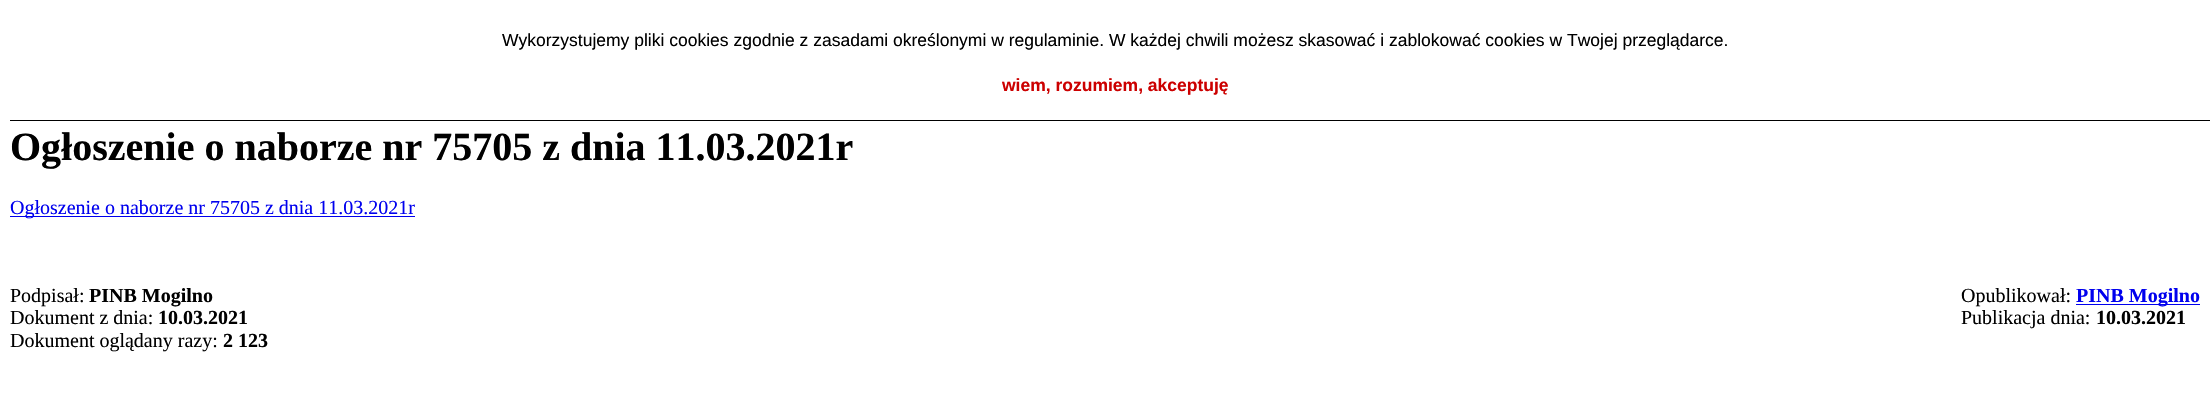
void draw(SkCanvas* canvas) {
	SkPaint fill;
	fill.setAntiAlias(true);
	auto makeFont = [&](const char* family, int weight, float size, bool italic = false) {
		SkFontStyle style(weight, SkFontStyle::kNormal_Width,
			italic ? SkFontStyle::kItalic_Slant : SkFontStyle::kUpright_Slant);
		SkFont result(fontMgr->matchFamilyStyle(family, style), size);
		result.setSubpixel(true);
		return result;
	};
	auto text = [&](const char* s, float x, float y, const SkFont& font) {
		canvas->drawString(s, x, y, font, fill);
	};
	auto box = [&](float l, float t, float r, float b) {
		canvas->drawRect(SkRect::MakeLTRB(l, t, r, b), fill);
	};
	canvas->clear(0xFFFFFFFF);
	fill.setColor(0xFF000000);
	box(10, 120, 2210, 121);
	fill.setColor(0xFF0000EE);
	box(10, 216, 415, 217);
	box(2076, 304, 2200, 305);
	auto font1 = makeFont("Liberation Sans", 400, 17.5f);
	fill.setColor(0xFF000000);
	text("Wykorzystujemy pliki cookies zgodnie z zasadami określonymi w regulaminie. W każdej chwili możesz skasować i zablokować cookies w Twojej przeglądarce.", 502, 46, font1);
	auto font2 = makeFont("Liberation Sans", 700, 17.5f);
	fill.setColor(0xFFCC0000);
	text("wiem, rozumiem, akceptuję", 1002, 91, font2);
	auto font3 = makeFont("Liberation Serif", 700, 40);
	fill.setColor(0xFF000000);
	text("Ogłoszenie o naborze nr 75705 z dnia 11.03.2021r", 10, 160, font3);
	auto font4 = makeFont("Liberation Serif", 400, 20);
	fill.setColor(0xFF0000EE);
	text("Ogłoszenie o naborze nr 75705 z dnia 11.03.2021r", 10, 214, font4);
	fill.setColor(0xFF000000);
	text("Podpisał:", 10, 302, font4);
	auto font5 = makeFont("Liberation Serif", 700, 20);
	text("PINB Mogilno", 89, 302, font5);
	text("Opublikował:", 1961, 302, font4);
	fill.setColor(0xFF0000EE);
	text("PINB Mogilno", 2076, 302, font5);
	fill.setColor(0xFF000000);
	text("Publikacja dnia:", 1961, 324, font4);
	text("10.03.2021", 2096, 324, font5);
	text("Dokument z dnia:", 10, 324, font4);
	text("10.03.2021", 158, 324, font5);
	text("Dokument oglądany razy:", 10, 347, font4);
	text("2 123", 223, 347, font5);
}
